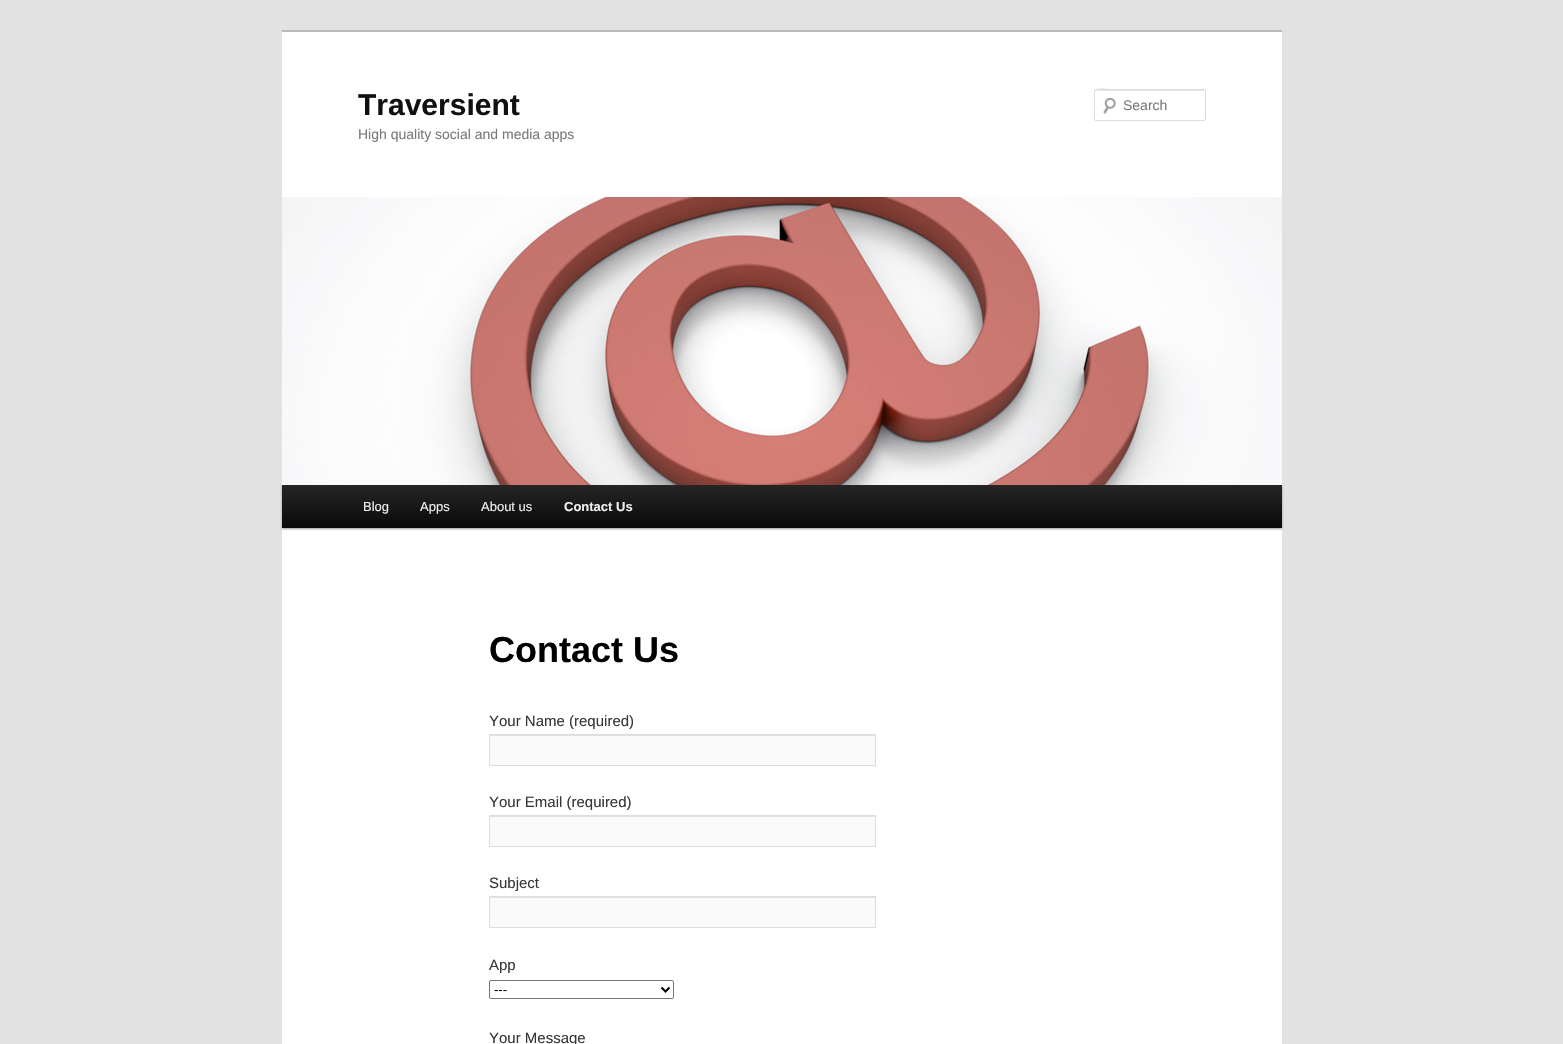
void draw(SkCanvas* canvas) {
	SkPaint fill;
	fill.setAntiAlias(true);
	auto makeFont = [&](const char* family, int weight, float size, bool italic = false) {
		SkFontStyle style(weight, SkFontStyle::kNormal_Width,
			italic ? SkFontStyle::kItalic_Slant : SkFontStyle::kUpright_Slant);
		SkFont result(fontMgr->matchFamilyStyle(family, style), size);
		result.setSubpixel(true);
		return result;
	};
	auto text = [&](const char* s, float x, float y, const SkFont& font) {
		canvas->drawString(s, x, y, font, fill);
	};
	auto box = [&](float l, float t, float r, float b) {
		canvas->drawRect(SkRect::MakeLTRB(l, t, r, b), fill);
	};
	auto picture = [&](const char* path, float l, float t, float r, float b) {
		auto image = SkImages::DeferredFromEncodedData(SkData::MakeFromFileName(path));
		canvas->drawImageRect(image, SkRect::MakeLTRB(l, t, r, b), SkSamplingOptions());
	};
	canvas->clear(0xFFE2E2E2);
	fill.setColor(0xFFFFFFFF);
	box(282, 32, 1282, 1044);
	fill.setColor(0xFFBBBBBB);
	box(282, 30, 1282, 32);
	picture("image0.png", 1103, 97, 1116, 114);
	fill.setColor(0xFFE6E6E6);
	canvas->drawPath(SkPathBuilder().moveTo(1096, 91).lineTo(1205, 91).lineTo(1205, 92).lineTo(1204, 90).lineTo(1114, 90).cubicTo(1110, 90, 1095, 85, 1095, 92).cubicTo(1095, 91, 1095, 91, 1096, 91).close().detach(), fill);
	fill.setStyle(SkPaint::kStroke_Style);
	fill.setStrokeWidth(1);
	fill.setColor(0xFFDDDDDD);
	canvas->drawRoundRect(SkRect::MakeLTRB(1094.5f, 89.5f, 1205.5f, 120.5f), 1.5f, 1.5f, fill);
	fill.setStyle(SkPaint::kFill_Style);
	fill.setColor(0x66000000);
	fill.setMaskFilter(SkMaskFilter::MakeBlur(kNormal_SkBlurStyle, 1));
	canvas->drawRect(SkRect::MakeLTRB(282, 486, 1282, 529), fill);
	fill.setMaskFilter(nullptr);
	picture("image1.png", 282, 197, 1282, 485);
	{
		const SkColor colors[] = {0xFF252525, 0xFF0A0A0A};
		const float stops[] = {0, 1};
		const SkPoint ends[] = {{782, 485}, {782, 528}};
		fill.setShader(SkGradientShader::MakeLinear(ends, colors, stops, 2, SkTileMode::kClamp));
		fill.setAlpha(255);
	}
	box(282, 485, 1282, 528);
	fill.setShader(nullptr);
	fill.setColor(0xFFFAFAFA);
	box(490, 736, 875, 765);
	fill.setColor(0xFFE1E1E1);
	box(490, 735, 875, 736);
	fill.setStyle(SkPaint::kStroke_Style);
	fill.setColor(0xFFDDDDDD);
	canvas->drawRect(SkRect::MakeLTRB(489.5f, 734.5f, 875.5f, 765.5f), fill);
	fill.setStyle(SkPaint::kFill_Style);
	fill.setColor(0xFFFAFAFA);
	box(490, 817, 875, 846);
	fill.setColor(0xFFE1E1E1);
	box(490, 816, 875, 817);
	fill.setStyle(SkPaint::kStroke_Style);
	fill.setColor(0xFFDDDDDD);
	canvas->drawRect(SkRect::MakeLTRB(489.5f, 815.5f, 875.5f, 846.5f), fill);
	fill.setStyle(SkPaint::kFill_Style);
	fill.setColor(0xFFFAFAFA);
	box(490, 898, 875, 927);
	fill.setColor(0xFFE1E1E1);
	box(490, 897, 875, 898);
	fill.setStyle(SkPaint::kStroke_Style);
	fill.setColor(0xFFDDDDDD);
	canvas->drawRect(SkRect::MakeLTRB(489.5f, 896.5f, 875.5f, 927.5f), fill);
	fill.setColor(0xFF767676);
	canvas->drawRoundRect(SkRect::MakeLTRB(489.5f, 980.5f, 673.5f, 998.5f), 1.5f, 1.5f, fill);
	fill.setStrokeWidth(2);
	fill.setColor(0xFF000000);
	canvas->drawPath(SkPathBuilder().moveTo(661.5f, 987.5f).lineTo(665.5f, 991.5f).lineTo(669.5f, 987.5f).detach(), fill);
	auto font1 = makeFont("Liberation Sans", 700, 30);
	fill.setStyle(SkPaint::kFill_Style);
	fill.setColor(0xFF111111);
	text("Traversient", 358, 115, font1);
	auto font2 = makeFont("Liberation Sans", 400, 14);
	fill.setColor(0xFF7A7A7A);
	text("High quality social and media apps", 358, 139, font2);
	text("Search", 1123, 110, font2);
	auto font3 = makeFont("Liberation Sans", 400, 13);
	fill.setColor(0xFFEEEEEE);
	text("Blog", 363, 511, font3);
	text("Apps", 420, 511, font3);
	text("About us", 481, 511, font3);
	auto font4 = makeFont("Liberation Sans", 700, 13);
	text("Contact Us", 564, 511, font4);
	auto font5 = makeFont("Liberation Sans", 700, 36);
	fill.setColor(0xFF000000);
	text("Contact Us", 489, 662, font5);
	auto font6 = makeFont("Liberation Sans", 400, 15);
	fill.setColor(0xFF373737);
	text("Your Name (required)", 489, 726, font6);
	text("Your Email (required)", 489, 807, font6);
	text("Subject", 489, 888, font6);
	text("App", 489, 970, font6);
	fill.setColor(0xFF000000);
	text("---", 494, 994, font3);
	fill.setColor(0xFF373737);
	text("Your Message", 489, 1043, font6);
}
